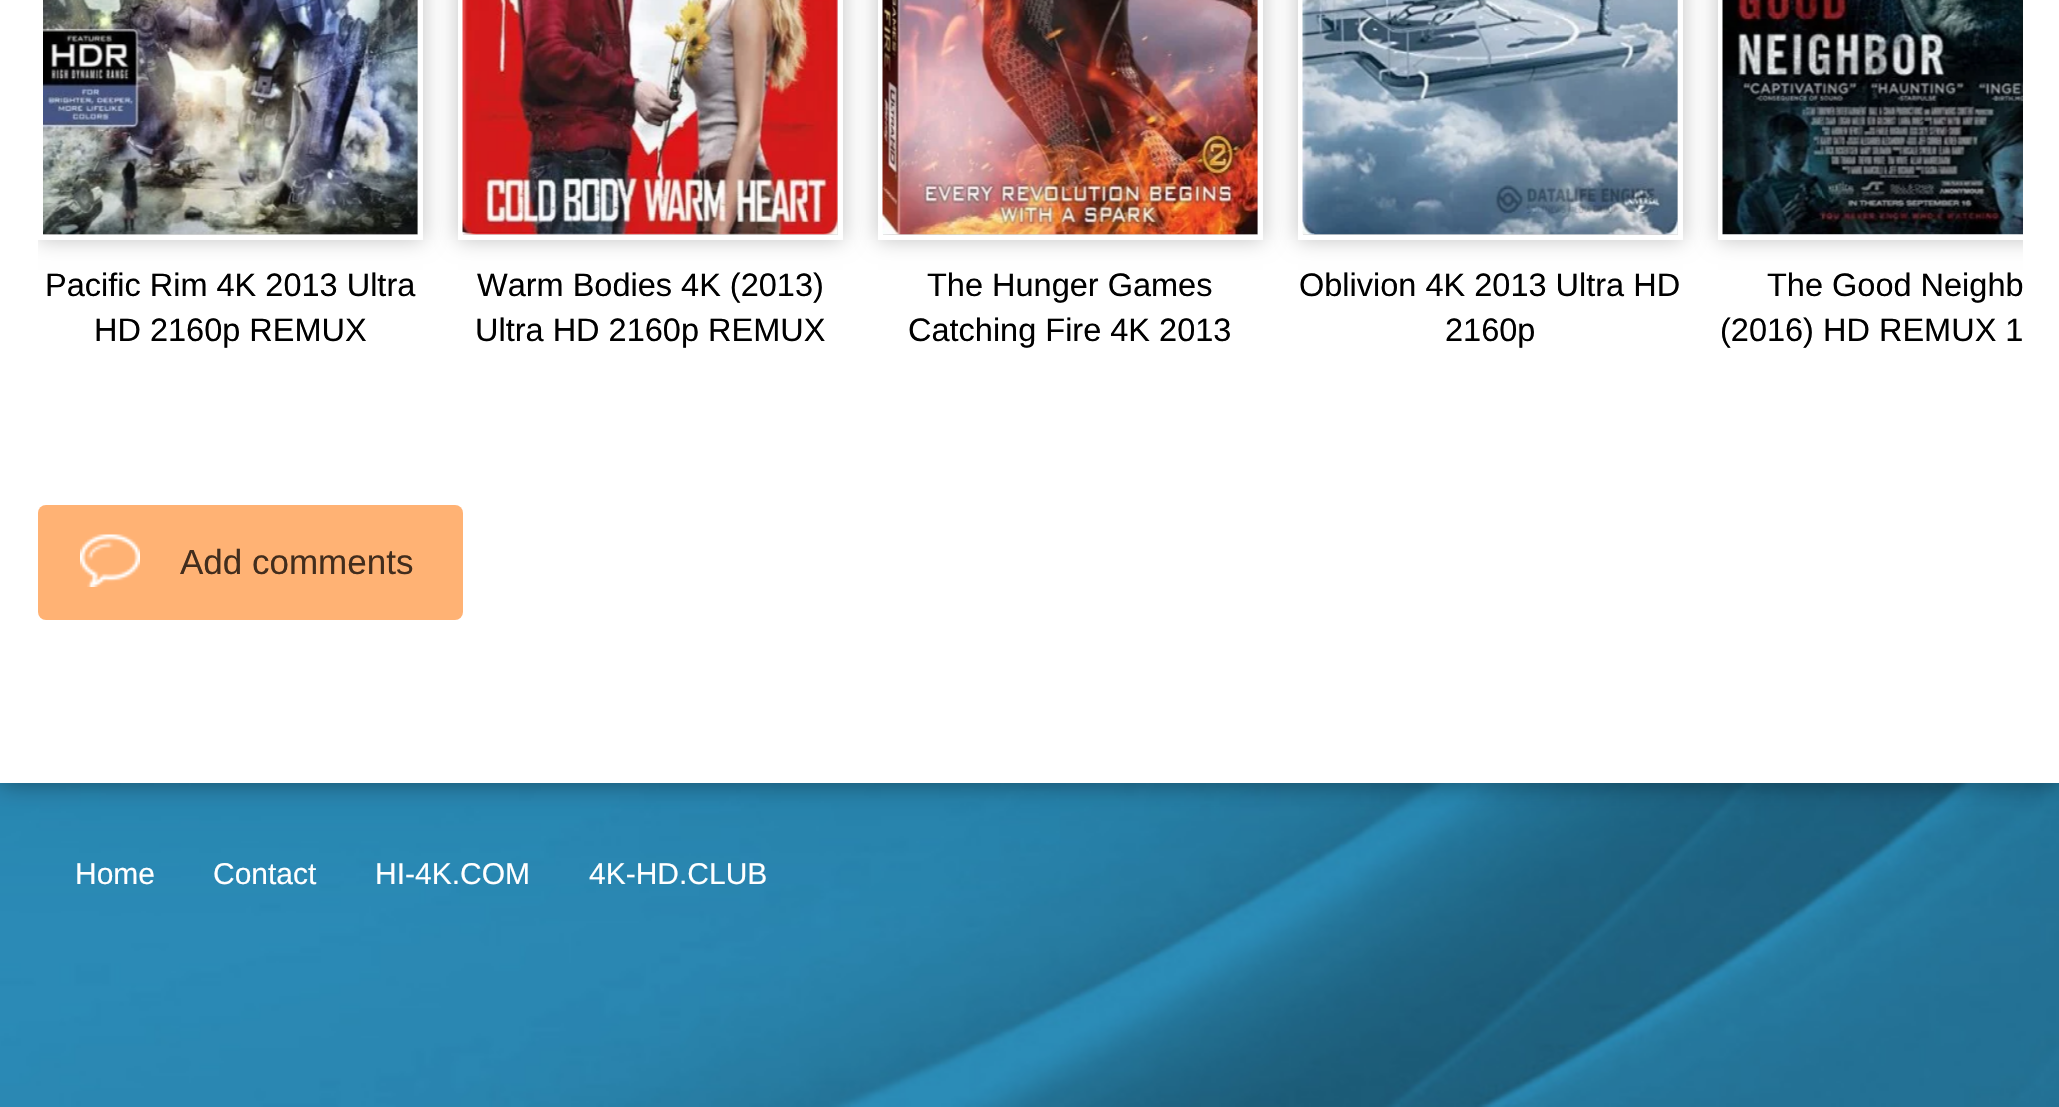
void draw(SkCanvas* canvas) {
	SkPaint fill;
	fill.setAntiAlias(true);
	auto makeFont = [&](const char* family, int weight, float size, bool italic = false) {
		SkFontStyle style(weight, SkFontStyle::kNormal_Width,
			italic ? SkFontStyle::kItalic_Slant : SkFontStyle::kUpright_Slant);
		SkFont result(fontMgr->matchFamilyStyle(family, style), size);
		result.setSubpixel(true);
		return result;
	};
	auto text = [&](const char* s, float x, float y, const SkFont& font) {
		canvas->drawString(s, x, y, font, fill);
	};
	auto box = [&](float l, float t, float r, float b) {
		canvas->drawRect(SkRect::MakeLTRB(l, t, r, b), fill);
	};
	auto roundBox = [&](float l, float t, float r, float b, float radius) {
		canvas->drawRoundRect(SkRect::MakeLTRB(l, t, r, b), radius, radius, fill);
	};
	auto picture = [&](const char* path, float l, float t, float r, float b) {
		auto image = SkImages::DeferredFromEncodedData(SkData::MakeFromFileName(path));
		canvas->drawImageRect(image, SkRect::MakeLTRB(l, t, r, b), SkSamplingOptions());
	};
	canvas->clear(0xFFFFFFFF);
	picture("image0.png", 0, 783, 2059, 1107);
	fill.setColor(0x6B000000);
	fill.setMaskFilter(SkMaskFilter::MakeBlur(kNormal_SkBlurStyle, 12.5f));
	canvas->drawRect(SkRect::MakeLTRB(0, -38, 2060, 783), fill);
	fill.setMaskFilter(nullptr);
	fill.setColor(0xFFFFFFFF);
	box(0, 0, 2059, 783);
	canvas->save();
	canvas->clipRect(SkRect::MakeLTRB(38, 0, 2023, 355));
	fill.setColor(0x3D000000);
	fill.setMaskFilter(SkMaskFilter::MakeBlur(kNormal_SkBlurStyle, 10));
	canvas->drawRect(SkRect::MakeLTRB(38, -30, 423, 240), fill);
	fill.setMaskFilter(nullptr);
	canvas->restore();
	fill.setStyle(SkPaint::kStroke_Style);
	fill.setStrokeWidth(5);
	fill.setColor(0xFFFFFFFF);
	canvas->drawRect(SkRect::MakeLTRB(40.5f, -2.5f, 420.5f, 237.5f), fill);
	picture("image1.png", 43, 0, 418, 235);
	fill.setStyle(SkPaint::kFill_Style);
	fill.setColor(0x3D000000);
	fill.setMaskFilter(SkMaskFilter::MakeBlur(kNormal_SkBlurStyle, 10));
	canvas->drawRect(SkRect::MakeLTRB(458, -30, 843, 240), fill);
	fill.setMaskFilter(nullptr);
	fill.setStyle(SkPaint::kStroke_Style);
	fill.setColor(0xFFFFFFFF);
	canvas->drawRect(SkRect::MakeLTRB(460.5f, -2.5f, 840.5f, 237.5f), fill);
	picture("image2.png", 462, 0, 838, 235);
	fill.setStyle(SkPaint::kFill_Style);
	fill.setColor(0x3D000000);
	fill.setMaskFilter(SkMaskFilter::MakeBlur(kNormal_SkBlurStyle, 10));
	canvas->drawRect(SkRect::MakeLTRB(878, -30, 1263, 240), fill);
	fill.setMaskFilter(nullptr);
	fill.setStyle(SkPaint::kStroke_Style);
	fill.setColor(0xFFFFFFFF);
	canvas->drawRect(SkRect::MakeLTRB(880.5f, -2.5f, 1260.5f, 237.5f), fill);
	picture("image3.png", 882, 0, 1258, 235);
	fill.setStyle(SkPaint::kFill_Style);
	fill.setColor(0x3D000000);
	fill.setMaskFilter(SkMaskFilter::MakeBlur(kNormal_SkBlurStyle, 10));
	canvas->drawRect(SkRect::MakeLTRB(1298, -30, 1683, 240), fill);
	fill.setMaskFilter(nullptr);
	fill.setStyle(SkPaint::kStroke_Style);
	fill.setColor(0xFFFFFFFF);
	canvas->drawRect(SkRect::MakeLTRB(1300.5f, -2.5f, 1680.5f, 237.5f), fill);
	picture("image4.png", 1302, 0, 1678, 235);
	canvas->save();
	canvas->clipRect(SkRect::MakeLTRB(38, 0, 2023, 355));
	canvas->clipPath(SkPathBuilder(SkPathFillType::kEvenOdd).moveTo(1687, 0).lineTo(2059, 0).lineTo(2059, 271).lineTo(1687, 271).close().moveTo(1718, -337).lineTo(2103, -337).lineTo(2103, 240).lineTo(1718, 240).close().detach(), true);
	fill.setStyle(SkPaint::kFill_Style);
	fill.setColor(0x3D000000);
	fill.setMaskFilter(SkMaskFilter::MakeBlur(kNormal_SkBlurStyle, 10));
	canvas->drawRect(SkRect::MakeLTRB(1718, -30, 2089, 240), fill);
	fill.setMaskFilter(nullptr);
	canvas->restore();
	picture("image5.png", 1722, 0, 2023, 235);
	fill.setColor(0xFFFFB274);
	roundBox(38, 505, 463, 620, 8);
	picture("image6.png", 80, 534, 140, 587);
	auto font1 = makeFont("Liberation Sans", 400, 32.5f);
	fill.setColor(0xFF000000);
	text("Pacific Rim 4K 2013 Ultra", 45, 296, font1);
	text("HD 2160p REMUX", 94, 341, font1);
	text("Warm Bodies 4K (2013)", 477, 296, font1);
	text("Ultra HD 2160p REMUX", 475, 341, font1);
	text("The Hunger Games", 927, 296, font1);
	text("Catching Fire 4K 2013", 908, 341, font1);
	text("Oblivion 4K 2013 Ultra HD", 1299, 296, font1);
	text("2160p", 1445, 341, font1);
	text("The Good Neighb", 1767, 296, font1);
	text("(2016) HD REMUX 1", 1720, 341, font1);
	auto font2 = makeFont("Liberation Sans", 400, 35);
	fill.setColor(0xFF422D1D);
	text("Add comments", 180, 574, font2);
	auto font3 = makeFont("Liberation Sans", 400, 30);
	fill.setColor(0xFFFFFFFF);
	text("Home", 75, 884, font3);
	text("Contact", 213, 884, font3);
	text("HI-4K.COM", 375, 884, font3);
	text("4K-HD.CLUB", 589, 884, font3);
}
